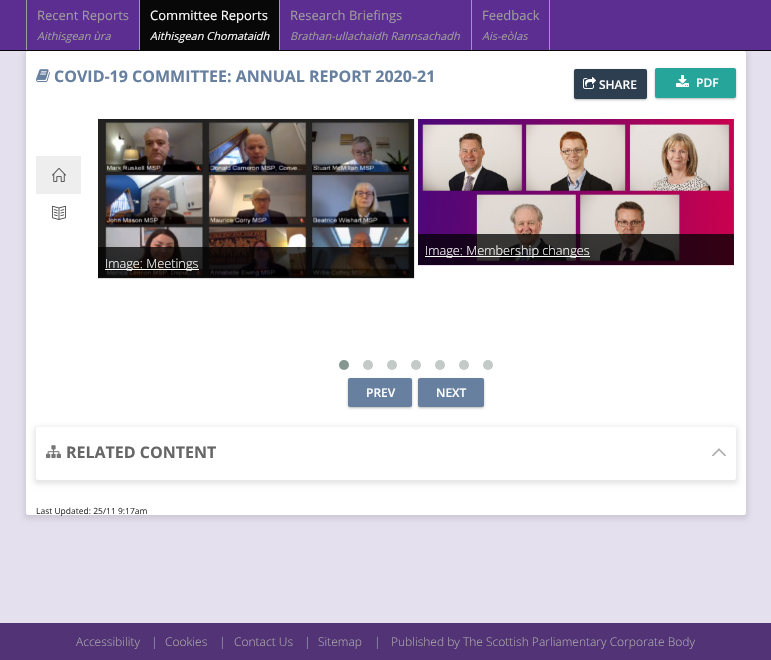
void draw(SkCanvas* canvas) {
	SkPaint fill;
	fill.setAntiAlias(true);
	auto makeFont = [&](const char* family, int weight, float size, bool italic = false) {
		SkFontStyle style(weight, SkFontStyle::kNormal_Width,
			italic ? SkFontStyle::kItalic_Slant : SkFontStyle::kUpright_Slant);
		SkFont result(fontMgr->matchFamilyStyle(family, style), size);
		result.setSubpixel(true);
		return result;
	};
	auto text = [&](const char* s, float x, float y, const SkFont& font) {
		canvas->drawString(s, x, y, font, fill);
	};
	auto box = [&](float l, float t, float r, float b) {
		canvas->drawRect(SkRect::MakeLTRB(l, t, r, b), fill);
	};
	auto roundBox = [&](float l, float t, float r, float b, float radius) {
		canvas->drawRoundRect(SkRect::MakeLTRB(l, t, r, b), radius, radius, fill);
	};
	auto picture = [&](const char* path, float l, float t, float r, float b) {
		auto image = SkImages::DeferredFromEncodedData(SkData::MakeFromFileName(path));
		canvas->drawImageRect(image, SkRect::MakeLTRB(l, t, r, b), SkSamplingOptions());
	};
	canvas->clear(0xFFE5E0EE);
	fill.setColor(0x1A000000);
	fill.setMaskFilter(SkMaskFilter::MakeBlur(kNormal_SkBlurStyle, 2.5f));
	canvas->drawRoundRect(SkRect::MakeLTRB(24, 51, 748, 519), 4, 4, fill);
	fill.setMaskFilter(nullptr);
	fill.setColor(0xFF5C2E91);
	box(0, 0, 771, 50);
	fill.setColor(0xFF080808);
	box(0, 50, 771, 51);
	fill.setColor(0xFF9D9D9D);
	box(139, 0, 140, 50);
	box(26, 0, 27, 50);
	fill.setColor(0xFF080808);
	box(140, 0, 279, 50);
	fill.setColor(0xFF9D9D9D);
	box(279, 0, 280, 50);
	box(471, 0, 472, 50);
	box(549, 0, 550, 50);
	fill.setColor(0xFFFFFFFF);
	roundBox(26, 51, 746, 515, 2);
	picture("image0.png", 36, 69, 50, 83);
	fill.setColor(0x2E000000);
	fill.setMaskFilter(SkMaskFilter::MakeBlur(kNormal_SkBlurStyle, 1));
	canvas->drawRoundRect(SkRect::MakeLTRB(574, 70, 647, 100), 2, 2, fill);
	fill.setMaskFilter(nullptr);
	fill.setColor(0x1A000000);
	fill.setMaskFilter(SkMaskFilter::MakeBlur(kNormal_SkBlurStyle, 1.5f));
	canvas->drawRoundRect(SkRect::MakeLTRB(574, 70, 647, 100), 2, 2, fill);
	fill.setMaskFilter(nullptr);
	fill.setColor(0xFF2C3E50);
	roundBox(574, 69, 647, 99, 2);
	picture("image1.png", 583, 77, 596, 89);
	fill.setColor(0x2E000000);
	fill.setMaskFilter(SkMaskFilter::MakeBlur(kNormal_SkBlurStyle, 1));
	canvas->drawRoundRect(SkRect::MakeLTRB(655, 69, 736, 99), 2, 2, fill);
	fill.setMaskFilter(nullptr);
	fill.setColor(0x1A000000);
	fill.setMaskFilter(SkMaskFilter::MakeBlur(kNormal_SkBlurStyle, 1.5f));
	canvas->drawRoundRect(SkRect::MakeLTRB(655, 69, 736, 99), 2, 2, fill);
	fill.setMaskFilter(nullptr);
	fill.setColor(0xFF26A69A);
	roundBox(655, 68, 736, 98, 2);
	picture("image2.png", 676, 75, 689, 87);
	fill.setColor(0xFFEEEEEE);
	box(36, 156, 81, 194);
	picture("image3.png", 52, 168, 66, 182);
	picture("image4.png", 52, 205, 66, 220);
	picture("image5.png", 418, 119, 734, 266);
	fill.setColor(0xBF000000);
	box(418, 234, 734, 265);
	fill.setColor(0xFFFFFFFF);
	box(425, 256, 590, 257);
	picture("image6.png", 98, 119, 415, 279);
	fill.setColor(0xBF000000);
	box(98, 247, 414, 278);
	fill.setColor(0xFFFFFFFF);
	box(105, 269, 199, 270);
	fill.setColor(0xFF869791);
	canvas->drawCircle(344, 365, 5, fill);
	fill.setColor(0xFFC3CBC8);
	canvas->drawCircle(368, 365, 5, fill);
	canvas->drawCircle(392, 365, 5, fill);
	canvas->drawCircle(416, 365, 5, fill);
	canvas->drawCircle(440, 365, 5, fill);
	canvas->drawCircle(464, 365, 5, fill);
	canvas->drawCircle(488, 365, 5, fill);
	fill.setColor(0x2E000000);
	fill.setMaskFilter(SkMaskFilter::MakeBlur(kNormal_SkBlurStyle, 1));
	canvas->drawRoundRect(SkRect::MakeLTRB(348, 379, 412, 408), 2, 2, fill);
	fill.setMaskFilter(nullptr);
	fill.setColor(0x1A000000);
	fill.setMaskFilter(SkMaskFilter::MakeBlur(kNormal_SkBlurStyle, 1.5f));
	canvas->drawRoundRect(SkRect::MakeLTRB(348, 379, 412, 408), 2, 2, fill);
	fill.setMaskFilter(nullptr);
	fill.setColor(0xFF67809F);
	roundBox(348, 378, 412, 407, 2);
	fill.setColor(0x2E000000);
	fill.setMaskFilter(SkMaskFilter::MakeBlur(kNormal_SkBlurStyle, 1));
	canvas->drawRoundRect(SkRect::MakeLTRB(418, 379, 484, 408), 2, 2, fill);
	fill.setMaskFilter(nullptr);
	fill.setColor(0x1A000000);
	fill.setMaskFilter(SkMaskFilter::MakeBlur(kNormal_SkBlurStyle, 1.5f));
	canvas->drawRoundRect(SkRect::MakeLTRB(418, 379, 484, 408), 2, 2, fill);
	fill.setMaskFilter(nullptr);
	fill.setColor(0xFF67809F);
	roundBox(418, 378, 484, 407, 2);
	fill.setColor(0x1A000000);
	fill.setMaskFilter(SkMaskFilter::MakeBlur(kNormal_SkBlurStyle, 2.5f));
	canvas->drawRoundRect(SkRect::MakeLTRB(34, 427, 738, 484), 4, 4, fill);
	fill.setMaskFilter(nullptr);
	fill.setColor(0xFFFFFFFF);
	roundBox(36, 427, 736, 480, 2);
	picture("image7.png", 46, 445, 61, 459);
	picture("image8.png", 712, 448, 726, 456);
	fill.setColor(0xFF523376);
	box(0, 623, 771, 660);
	auto font1 = makeFont("Open Sans", 400, 13);
	fill.setColor(0xFF9D9D9D);
	text("Recent Reports", 37, 20, font1);
	auto font2 = makeFont("Open Sans", 400, 11, true);
	text("Aithisgean ùra", 37, 40, font2);
	fill.setColor(0xFFFFFFFF);
	text("Committee Reports", 150, 20, font1);
	text("Aithisgean Chomataidh", 150, 40, font2);
	fill.setColor(0xFF9D9D9D);
	text("Research Briefings", 290, 20, font1);
	text("Brathan-ullachaidh Rannsachadh", 290, 40, font2);
	text("Feedback", 482, 20, font1);
	text("Ais-eòlas", 482, 40, font2);
	auto font3 = makeFont("Open Sans", 700, 16);
	fill.setColor(0xFF67809F);
	text("COVID-19 COMMITTEE: ANNUAL REPORT 2020-21", 54, 82, font3);
	auto font4 = makeFont("Open Sans", 600, 12);
	fill.setColor(0xFFFFFFFF);
	text("SHARE", 599, 89, font4);
	text("PDF", 696, 87, font4);
	auto font5 = makeFont("Open Sans", 300, 12.75f);
	text("Image: Membership changes", 425, 255, font5);
	text("Image: Meetings", 105, 268, font5);
	text("PREV", 366, 397, font4);
	text("NEXT", 436, 397, font4);
	fill.setColor(0xFF666666);
	text("RELATED CONTENT", 66, 458, font3);
	auto font6 = makeFont("Open Sans", 400, 8.5f);
	fill.setColor(0xFF333333);
	text("Last Updated: 25/11 9:17am", 36, 514, font6);
	auto font7 = makeFont("Open Sans", 300, 12);
	fill.setColor(0xFFAAAAAA);
	text("Accessibility", 76, 646, font7);
	fill.setColor(0xFFA2ABB7);
	text("|", 151, 646, font7);
	fill.setColor(0xFFAAAAAA);
	text("Cookies", 165, 646, font7);
	fill.setColor(0xFFA2ABB7);
	text("|", 219, 646, font7);
	fill.setColor(0xFFAAAAAA);
	text("Contact Us", 234, 646, font7);
	fill.setColor(0xFFA2ABB7);
	text("|", 304, 646, font7);
	fill.setColor(0xFFAAAAAA);
	text("Sitemap", 318, 646, font7);
	fill.setColor(0xFFA2ABB7);
	text("|", 374, 646, font7);
	fill.setColor(0xFFAAAAAA);
	text("Published by The Scottish Parliamentary Corporate Body", 391, 646, font7);
}
